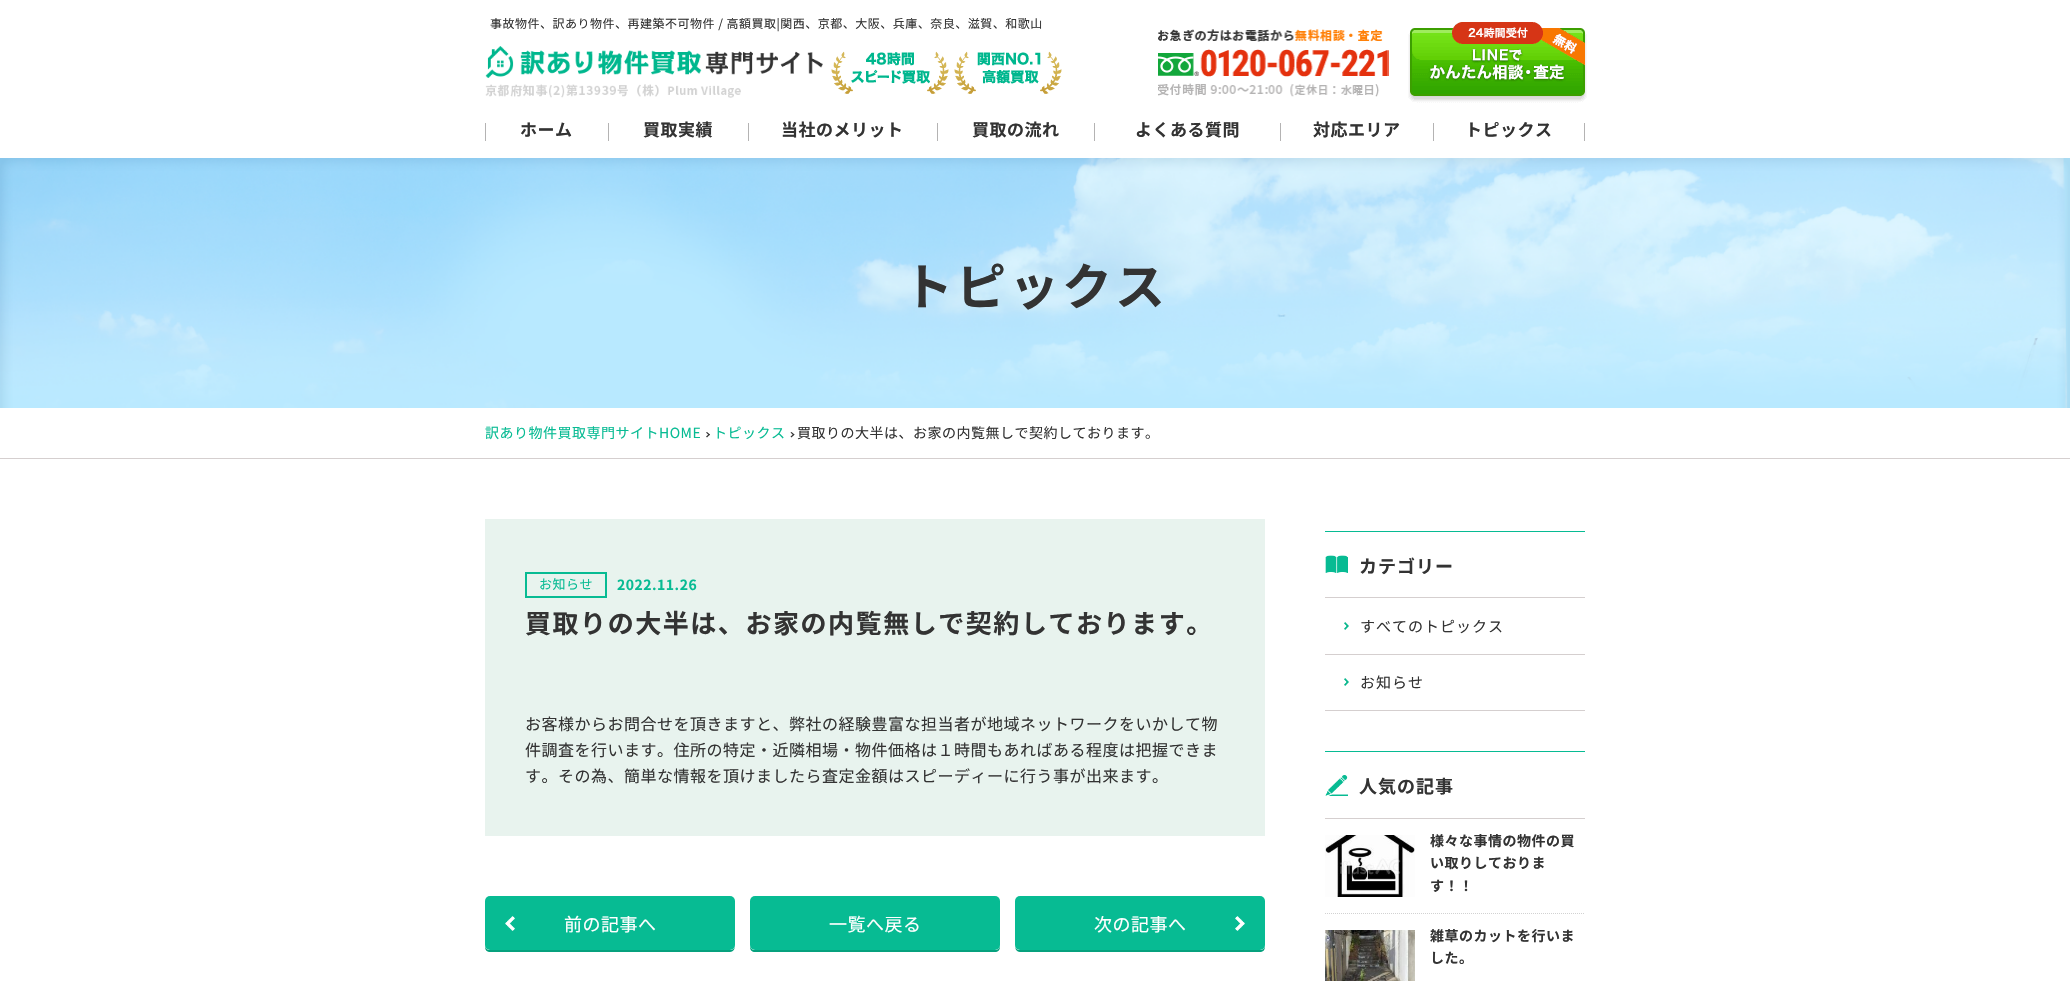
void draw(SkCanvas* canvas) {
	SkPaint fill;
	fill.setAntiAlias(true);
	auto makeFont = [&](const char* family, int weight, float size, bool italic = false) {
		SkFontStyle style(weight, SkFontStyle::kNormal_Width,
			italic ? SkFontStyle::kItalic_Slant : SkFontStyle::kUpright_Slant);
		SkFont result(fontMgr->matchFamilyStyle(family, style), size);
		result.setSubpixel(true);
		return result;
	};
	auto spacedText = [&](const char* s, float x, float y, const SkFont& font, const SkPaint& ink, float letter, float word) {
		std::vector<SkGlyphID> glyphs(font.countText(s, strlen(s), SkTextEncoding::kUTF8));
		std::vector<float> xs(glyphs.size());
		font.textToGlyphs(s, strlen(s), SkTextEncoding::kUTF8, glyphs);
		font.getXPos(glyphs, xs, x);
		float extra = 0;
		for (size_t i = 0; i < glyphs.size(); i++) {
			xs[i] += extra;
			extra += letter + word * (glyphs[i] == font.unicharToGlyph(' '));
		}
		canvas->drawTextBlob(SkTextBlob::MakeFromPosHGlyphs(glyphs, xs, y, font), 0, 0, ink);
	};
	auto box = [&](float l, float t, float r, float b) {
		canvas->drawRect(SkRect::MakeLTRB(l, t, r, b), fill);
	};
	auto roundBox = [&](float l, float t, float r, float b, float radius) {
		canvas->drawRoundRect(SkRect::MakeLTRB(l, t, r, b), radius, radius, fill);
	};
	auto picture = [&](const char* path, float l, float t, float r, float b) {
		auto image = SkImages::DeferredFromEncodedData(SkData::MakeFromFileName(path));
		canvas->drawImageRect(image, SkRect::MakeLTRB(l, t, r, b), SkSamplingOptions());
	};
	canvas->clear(0xFFFFFFFF);
	picture("image0.png", 485, 46, 823, 98);
	picture("image1.png", 831, 51, 1062, 94);
	picture("image2.png", 1158, 29, 1389, 97);
	picture("image3.png", 1408, 22, 1587, 103);
	fill.setColor(0xFFB4B3B3);
	box(485, 123, 486, 141);
	box(608, 123, 609, 141);
	box(748, 123, 749, 141);
	box(937, 123, 938, 141);
	box(1094, 123, 1095, 141);
	box(1280, 123, 1281, 141);
	box(1433, 123, 1434, 141);
	box(1584, 123, 1585, 141);
	picture("image4.png", 0, 158, 2070, 408);
	fill.setColor(0xFFD5CFCF);
	box(0, 458, 2070, 459);
	fill.setColor(0xFF333333);
	canvas->drawPath(SkPathBuilder().moveTo(706, 432.5f).lineTo(707, 432).lineTo(710, 434.5f).lineTo(709, 435.5f).close().detach(), fill);
	canvas->drawPath(SkPathBuilder().moveTo(706, 436.5f).lineTo(709, 434).lineTo(710, 434.5f).lineTo(707, 437.5f).close().detach(), fill);
	canvas->drawPath(SkPathBuilder().moveTo(790.5f, 432.5f).lineTo(791.5f, 432).lineTo(794.5f, 434.5f).lineTo(793.5f, 435.5f).close().detach(), fill);
	canvas->drawPath(SkPathBuilder().moveTo(790.5f, 436.5f).lineTo(793.5f, 434).lineTo(794.5f, 434.5f).lineTo(791.5f, 437.5f).close().detach(), fill);
	fill.setColor(0xFFE8F3EE);
	box(485, 519, 1265, 836);
	fill.setStyle(SkPaint::kStroke_Style);
	fill.setStrokeWidth(2);
	fill.setColor(0xFF07BB93);
	canvas->drawRect(SkRect::MakeLTRB(526, 573, 606, 597), fill);
	fill.setStyle(SkPaint::kFill_Style);
	fill.setColor(0xFF06A17E);
	canvas->drawPath(SkPathBuilder().moveTo(485, 945).cubicTo(485, 948, 485, 951, 489, 952).lineTo(730, 952).cubicTo(734, 952, 735, 948, 735, 945).cubicTo(735, 948, 733, 950, 730, 950).lineTo(490, 950).cubicTo(487, 950, 485, 948, 485, 945).close().detach(), fill);
	fill.setColor(0xFF07BB93);
	roundBox(485, 896, 735, 950, 5);
	picture("image5.png", 505, 916, 515, 931);
	fill.setColor(0xFF06A17E);
	canvas->drawPath(SkPathBuilder().moveTo(1015, 945).cubicTo(1015, 948, 1016, 952, 1020, 952).lineTo(1261, 952).cubicTo(1265, 951, 1265, 948, 1265, 945).cubicTo(1265, 948, 1263, 950, 1260, 950).lineTo(1020, 950).cubicTo(1017, 950, 1015, 948, 1015, 945).close().detach(), fill);
	fill.setColor(0xFF07BB93);
	roundBox(1015, 896, 1265, 950, 5);
	picture("image6.png", 1235, 916, 1245, 931);
	fill.setColor(0xFF06A17E);
	canvas->drawPath(SkPathBuilder().moveTo(750, 945).lineTo(750, 947).cubicTo(750, 950, 752, 952, 755, 952).lineTo(995, 952).cubicTo(998, 952, 1000, 950, 1000, 947).lineTo(1000, 945).cubicTo(1000, 948, 998, 950, 995, 950).lineTo(755, 950).cubicTo(752, 950, 750, 948, 750, 945).close().detach(), fill);
	fill.setColor(0xFF07BB93);
	roundBox(750, 896, 1000, 950, 5);
	picture("image7.png", 1325, 555, 1348, 573);
	box(1325, 531, 1585, 532);
	fill.setColor(0xFFD5CFCF);
	box(1325, 597, 1585, 598);
	box(1325, 710, 1585, 711);
	picture("image8.png", 1344, 622, 1349, 630);
	box(1325, 654, 1585, 655);
	picture("image8.png", 1344, 678, 1349, 686);
	picture("image9.png", 1325, 775, 1348, 796);
	fill.setColor(0xFF07BB93);
	box(1325, 751, 1585, 752);
	fill.setColor(0xFFD5CFCF);
	box(1325, 818, 1585, 819);
	fill.setStyle(SkPaint::kStroke_Style);
	fill.setStrokeWidth(1);
	fill.setColor(0xFFD2D2D2);
	fill.setPathEffect(SkDashPathEffect::Make({{1, 1}}, 0));
	canvas->drawPath(SkPathBuilder().moveTo(1325, 913.5f).lineTo(1585, 913.5f).detach(), fill);
	fill.setPathEffect(nullptr);
	picture("image10.png", 1325, 835, 1415, 897);
	picture("image11.png", 1325, 930, 1415, 981);
	auto font1 = makeFont("Noto Sans JP", 400, 12);
	fill.setStyle(SkPaint::kFill_Style);
	fill.setColor(0xFF333333);
	spacedText("事故物件、訳あり物件、再建築不可物件 / 高額買取|関西、京都、大阪、兵庫、奈良、滋賀、和歌山", 490, 28, font1, fill, 0.5f, 0);
	auto font2 = makeFont("Noto Sans JP", 700, 17);
	spacedText("ホーム", 520, 136, font2, fill, 0.5f, 0);
	spacedText("買取実績", 643, 136, font2, fill, 0.5f, 0);
	spacedText("当社のメリット", 781, 136, font2, fill, 0.5f, 0);
	spacedText("買取の流れ", 972, 136, font2, fill, 0.5f, 0);
	spacedText("よくある質問", 1135, 136, font2, fill, 0.5f, 0);
	spacedText("対応エリア", 1313, 136, font2, fill, 0.5f, 0);
	spacedText("トピックス", 1465, 136, font2, fill, 0.5f, 0);
	auto font3 = makeFont("Noto Sans JP", 700, 50);
	spacedText("トピックス", 903, 305, font3, fill, 3, 0);
	auto font4 = makeFont("Noto Sans JP", 400, 14);
	fill.setColor(0xFF07BB93);
	spacedText("訳あり物件買取専門サイトHOME", 485, 438, font4, fill, 0.5f, 0);
	spacedText("トピックス", 713, 438, font4, fill, 0.5f, 0);
	fill.setColor(0xFF333333);
	spacedText("買取りの大半は、お家の内覧無しで契約しております。", 797, 438, font4, fill, 0.5f, 0);
	auto font5 = makeFont("Noto Sans JP", 400, 13);
	fill.setColor(0xFF07BB93);
	spacedText("お知らせ", 539, 589, font5, fill, 0.5f, 0);
	auto font6 = makeFont("Noto Sans JP", 700, 14);
	spacedText("2022.11.26", 617, 590, font6, fill, 0.5f, 0);
	auto font7 = makeFont("Noto Sans JP", 700, 26);
	fill.setColor(0xFF333333);
	spacedText("買取りの大半は、お家の内覧無しで契約しております。", 525, 633, font7, fill, 1.55f, 0);
	auto font8 = makeFont("Noto Sans JP", 400, 16);
	spacedText("お客様からお問合せを頂きますと、弊社の経験豊富な担当者が地域ネットワークをいかして物", 525, 730, font8, fill, 0.5f, 0);
	spacedText("件調査を行います。住所の特定・近隣相場・物件価格は１時間もあればある程度は把握できま", 525, 756, font8, fill, 0.5f, 0);
	spacedText("す。その為、簡単な情報を頂けましたら査定金額はスピーディーに行う事が出来ます。", 525, 782, font8, fill, 0.5f, 0);
	auto font9 = makeFont("Noto Sans JP", 400, 18);
	fill.setColor(0xFFFFFFFF);
	spacedText("前の記事へ", 564, 931, font9, fill, 0.5f, 0);
	spacedText("次の記事へ", 1094, 931, font9, fill, 0.5f, 0);
	spacedText("一覧へ戻る", 829, 931, font9, fill, 0.5f, 0);
	auto font10 = makeFont("Noto Sans JP", 700, 18);
	fill.setColor(0xFF333333);
	spacedText("カテゴリー", 1359, 573, font10, fill, 1, 0);
	auto font11 = makeFont("Noto Sans JP", 400, 15);
	spacedText("すべてのトピックス", 1360, 632, font11, fill, 1, 0);
	spacedText("お知らせ", 1360, 688, font11, fill, 1, 0);
	spacedText("人気の記事", 1359, 793, font10, fill, 1, 0);
	spacedText("様々な事情の物件の買", 1430, 846, font6, fill, 0.5f, 0);
	spacedText("い取りしておりま", 1430, 868, font6, fill, 0.5f, 0);
	spacedText("す！！", 1430, 891, font6, fill, 0.5f, 0);
	spacedText("雑草のカットを行いま", 1430, 941, font6, fill, 0.5f, 0);
	spacedText("した。", 1430, 963, font6, fill, 0.5f, 0);
}
